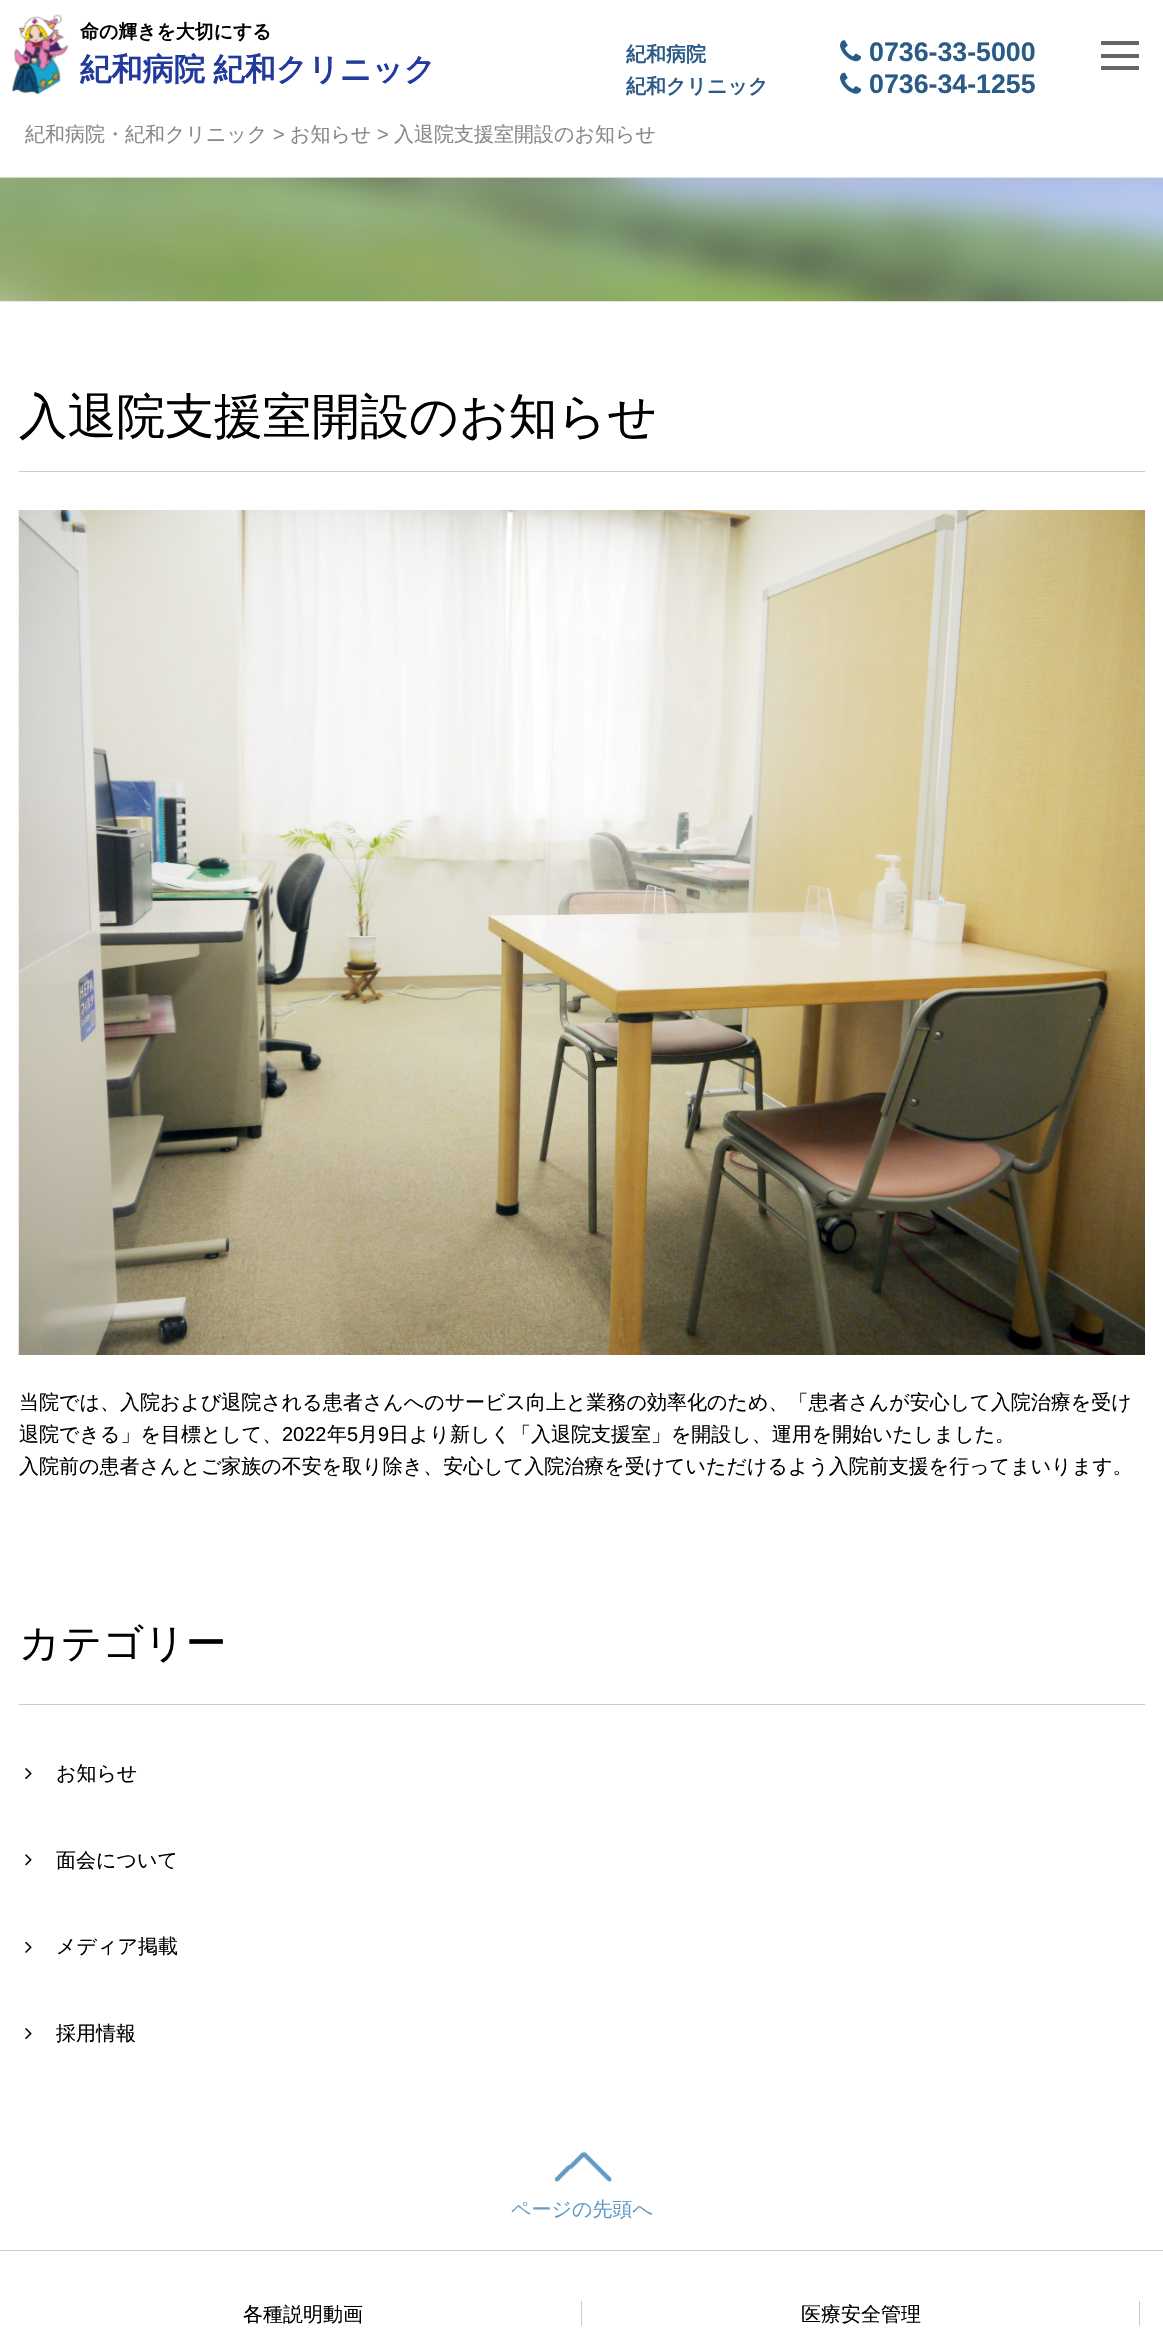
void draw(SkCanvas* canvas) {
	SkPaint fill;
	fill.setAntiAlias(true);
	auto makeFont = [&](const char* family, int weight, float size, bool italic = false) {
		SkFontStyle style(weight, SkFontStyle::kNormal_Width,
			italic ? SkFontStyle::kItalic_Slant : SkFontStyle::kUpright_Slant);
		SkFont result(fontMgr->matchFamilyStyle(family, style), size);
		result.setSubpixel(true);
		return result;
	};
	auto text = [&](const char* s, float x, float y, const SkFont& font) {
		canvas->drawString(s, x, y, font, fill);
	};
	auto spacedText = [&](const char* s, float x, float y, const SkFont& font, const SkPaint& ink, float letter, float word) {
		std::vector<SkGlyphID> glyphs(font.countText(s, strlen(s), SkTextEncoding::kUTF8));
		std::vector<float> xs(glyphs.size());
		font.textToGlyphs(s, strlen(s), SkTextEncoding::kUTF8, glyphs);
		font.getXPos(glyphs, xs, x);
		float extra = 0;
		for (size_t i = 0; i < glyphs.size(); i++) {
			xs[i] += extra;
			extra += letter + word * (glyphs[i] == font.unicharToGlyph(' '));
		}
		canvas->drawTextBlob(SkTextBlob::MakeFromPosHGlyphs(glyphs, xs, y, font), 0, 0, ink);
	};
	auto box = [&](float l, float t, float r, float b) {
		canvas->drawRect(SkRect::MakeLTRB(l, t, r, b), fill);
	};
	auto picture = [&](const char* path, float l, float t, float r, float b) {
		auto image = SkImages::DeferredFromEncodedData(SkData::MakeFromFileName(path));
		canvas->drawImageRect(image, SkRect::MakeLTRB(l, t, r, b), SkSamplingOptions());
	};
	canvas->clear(0xFFFFFFFF);
	picture("image0.png", 12, 14, 68, 94);
	picture("image1.png", 840, 40, 861, 62);
	picture("image2.png", 840, 72, 862, 94);
	fill.setColor(0xFF666666);
	box(1101, 41, 1139, 45);
	box(1101, 54, 1139, 58);
	box(1101, 66, 1139, 70);
	picture("image3.png", 0, 176, 1163, 302);
	fill.setColor(0xFFCCCCCC);
	box(19, 471, 1145, 472);
	picture("image4.png", 18, 510, 1145, 1355);
	box(19, 1704, 1145, 1705);
	picture("image5.png", 25, 1768, 32, 1780);
	picture("image6.png", 25, 1854, 32, 1866);
	picture("image7.png", 25, 1941, 32, 1953);
	picture("image5.png", 25, 2028, 32, 2040);
	box(0, 2250, 1163, 2251);
	picture("image8.png", 554, 2152, 612, 2182);
	box(581, 2301, 582, 2326);
	box(1139, 2301, 1140, 2326);
	auto font1 = makeFont("WenQuanYi Zen Hei", 700, 18.9f);
	fill.setColor(0xFF000000);
	text("命の輝きを大切にする", 80, 38, font1);
	auto font2 = makeFont("WenQuanYi Zen Hei", 700, 31.25f);
	fill.setColor(0xFF233A9D);
	spacedText("紀和病院 紀和クリニック", 80, 80, font2, fill, 0, -1);
	auto font3 = makeFont("WenQuanYi Zen Hei", 700, 20);
	fill.setColor(0xFF2A5B88);
	text("紀和病院", 626, 61, font3);
	auto font4 = makeFont("Liberation Sans", 700, 26.75f);
	text("0736-33-5000", 869, 61, font4);
	text("紀和クリニック", 626, 93, font3);
	text("0736-34-1255", 869, 93, font4);
	auto font5 = makeFont("WenQuanYi Zen Hei", 500, 20);
	fill.setColor(0xFF888888);
	text("紀和病院・紀和クリニック", 25, 141, font5);
	auto font6 = makeFont("Liberation Sans", 400, 20);
	text(">", 273, 141, font6);
	text("お知らせ", 290, 141, font5);
	text(">", 377, 141, font6);
	text("入退院支援室開設のお知らせ", 394, 141, font5);
	auto font7 = makeFont("WenQuanYi Zen Hei", 500, 48.75f);
	fill.setColor(0xFF000000);
	text("入退院支援室開設のお知らせ", 19, 433, font7);
	text("当院では、入院および退院される患者さんへのサービス向上と業務の効率化のため、「患者さんが安心して入院治療を受け", 19, 1409, font5);
	text("退院できる」を目標として、", 19, 1441, font5);
	text("2022", 282, 1441, font6);
	text("年", 327, 1441, font5);
	text("5", 347, 1441, font6);
	text("月", 358, 1441, font5);
	text("9", 378, 1441, font6);
	text("日より新しく「入退院支援室」を開設し、運用を開始いたしました。", 389, 1441, font5);
	text("入院前の患者さんとご家族の不安を取り除き、安心して入院治療を受けていただけるよう入院前支援を行ってまいります。", 19, 1473, font5);
	auto font8 = makeFont("WenQuanYi Zen Hei", 500, 40.75f);
	text("カテゴリー", 19, 1657, font8);
	text("お知らせ", 56, 1780, font5);
	text("面会について", 56, 1867, font5);
	text("メディア掲載", 56, 1953, font5);
	text("採用情報", 56, 2040, font5);
	fill.setColor(0xFF609BC8);
	text("ページの先頭へ", 511, 2216, font5);
	fill.setColor(0xFF000000);
	text("各種説明動画", 243, 2321, font5);
	text("医療安全管理", 801, 2321, font5);
}
